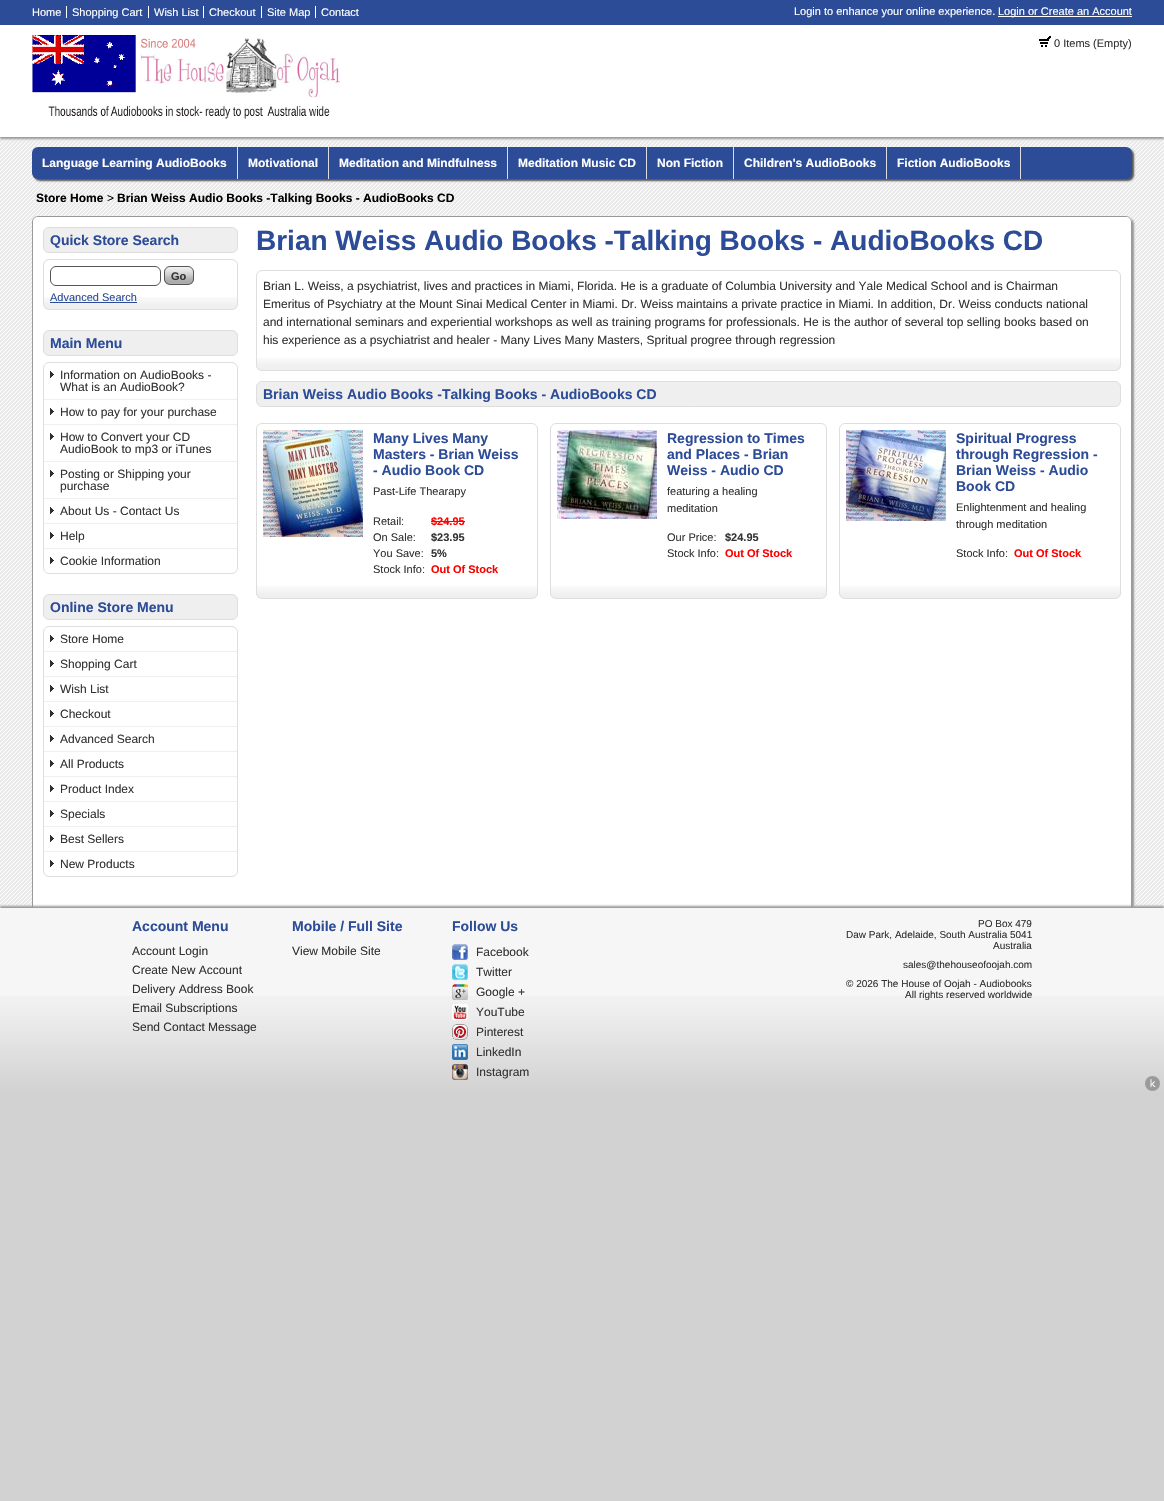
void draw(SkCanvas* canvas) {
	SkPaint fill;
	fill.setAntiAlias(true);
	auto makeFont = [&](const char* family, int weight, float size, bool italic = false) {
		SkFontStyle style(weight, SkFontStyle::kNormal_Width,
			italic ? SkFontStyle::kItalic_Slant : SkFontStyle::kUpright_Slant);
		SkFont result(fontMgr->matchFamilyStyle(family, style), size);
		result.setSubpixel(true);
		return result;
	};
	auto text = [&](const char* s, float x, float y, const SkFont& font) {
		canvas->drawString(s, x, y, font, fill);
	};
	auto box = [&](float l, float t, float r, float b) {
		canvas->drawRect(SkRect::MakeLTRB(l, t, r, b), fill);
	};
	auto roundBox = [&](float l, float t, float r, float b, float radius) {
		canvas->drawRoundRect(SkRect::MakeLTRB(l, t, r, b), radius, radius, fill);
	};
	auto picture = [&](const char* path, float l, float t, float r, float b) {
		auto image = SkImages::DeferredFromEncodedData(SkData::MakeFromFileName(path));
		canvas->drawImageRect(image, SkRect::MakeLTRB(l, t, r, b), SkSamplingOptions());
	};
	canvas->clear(0xFFD2D2D2);
	picture("image0.png", 0, 137, 1164, 908);
	fill.setColor(0xFF2D4C98);
	box(0, 0, 1164, 25);
	fill.setColor(0xFFFFFFFF);
	box(66, 6, 67, 18);
	box(148, 6, 149, 18);
	box(203, 6, 204, 18);
	box(261, 6, 262, 18);
	box(315, 6, 316, 18);
	box(998, 16, 1132, 17);
	fill.setColor(0xFF999999);
	fill.setMaskFilter(SkMaskFilter::MakeBlur(kNormal_SkBlurStyle, 1));
	canvas->drawRect(SkRect::MakeLTRB(0, 27, 1164, 139), fill);
	fill.setMaskFilter(nullptr);
	fill.setColor(0xFFFFFFFF);
	box(0, 25, 1164, 137);
	picture("image1.png", 32, 35, 341, 119);
	picture("image2.png", 1039, 36, 1051, 47);
	fill.setColor(0xFF555555);
	fill.setMaskFilter(SkMaskFilter::MakeBlur(kNormal_SkBlurStyle, 1));
	canvas->drawRoundRect(SkRect::MakeLTRB(34, 149, 1134, 181), 6, 6, fill);
	fill.setMaskFilter(nullptr);
	fill.setColor(0xFF2D4C98);
	roundBox(32, 147, 1132, 179, 6);
	fill.setColor(0xFFDEDEDE);
	box(237, 147, 238, 179);
	box(328, 147, 329, 179);
	box(507, 147, 508, 179);
	box(646, 147, 647, 179);
	box(733, 147, 734, 179);
	box(886, 147, 887, 179);
	box(1020, 147, 1021, 179);
	fill.setColor(0xFF999999);
	fill.setMaskFilter(SkMaskFilter::MakeBlur(kNormal_SkBlurStyle, 1));
	canvas->drawRoundRect(SkRect::MakeLTRB(34, 218, 1134, 910), 6, 6, fill);
	fill.setMaskFilter(nullptr);
	fill.setColor(0xFFFFFFFF);
	canvas->drawPath(SkPathBuilder().moveTo(38, 216).lineTo(1126, 216).cubicTo(1129.5f, 216, 1132, 218.5f, 1132, 222).lineTo(1132, 908).lineTo(32, 908).lineTo(32, 222).cubicTo(32, 218.5f, 34.5f, 216, 38, 216).close().detach(), fill);
	fill.setColor(0xFF999999);
	canvas->drawPath(SkPathBuilder(SkPathFillType::kEvenOdd).moveTo(38, 216).lineTo(1126, 216).cubicTo(1129, 216, 1132, 219, 1132, 222).lineTo(1132, 908).lineTo(32, 908).lineTo(32, 222).cubicTo(32, 219, 35, 216, 38, 216).close().moveTo(38, 217).lineTo(1126, 217).cubicTo(1129, 217, 1131, 219, 1131, 222).lineTo(1131, 908).lineTo(33, 908).lineTo(33, 222).cubicTo(33, 219, 35, 217, 38, 217).close().detach(), fill);
	fill.setColor(0xFFEFEFEF);
	canvas->drawRoundRect(SkRect::MakeLTRB(43.5f, 227.5f, 237.5f, 252.5f), 5.5f, 5.5f, fill);
	fill.setStyle(SkPaint::kStroke_Style);
	fill.setStrokeWidth(1);
	fill.setColor(0xFFDEDEDE);
	canvas->drawRoundRect(SkRect::MakeLTRB(43.5f, 227.5f, 237.5f, 252.5f), 5.5f, 5.5f, fill);
	picture("image3.png", 43, 297, 238, 309);
	canvas->drawRoundRect(SkRect::MakeLTRB(43.5f, 259.5f, 237.5f, 309.5f), 5.5f, 5.5f, fill);
	fill.setColor(0xFF555555);
	canvas->drawRoundRect(SkRect::MakeLTRB(50.5f, 266.5f, 160.5f, 285.5f), 5.5f, 5.5f, fill);
	picture("image4.png", 164, 266, 194, 284);
	canvas->drawRoundRect(SkRect::MakeLTRB(164.5f, 266.5f, 193.5f, 284.5f), 5.5f, 5.5f, fill);
	fill.setStyle(SkPaint::kFill_Style);
	fill.setColor(0xFF2D4C98);
	box(50, 302, 137, 303);
	fill.setColor(0xFFEFEFEF);
	canvas->drawRoundRect(SkRect::MakeLTRB(43.5f, 330.5f, 237.5f, 355.5f), 5.5f, 5.5f, fill);
	fill.setStyle(SkPaint::kStroke_Style);
	fill.setColor(0xFFDEDEDE);
	canvas->drawRoundRect(SkRect::MakeLTRB(43.5f, 330.5f, 237.5f, 355.5f), 5.5f, 5.5f, fill);
	canvas->drawRoundRect(SkRect::MakeLTRB(43.5f, 362.5f, 237.5f, 573.5f), 5.5f, 5.5f, fill);
	fill.setStyle(SkPaint::kFill_Style);
	fill.setColor(0xFFEFEFEF);
	box(44, 399, 237, 400);
	picture("image5.png", 50, 371, 54, 378);
	box(44, 424, 237, 425);
	picture("image5.png", 50, 408, 54, 415);
	box(44, 461, 237, 462);
	picture("image5.png", 50, 433, 54, 440);
	box(44, 498, 237, 499);
	picture("image5.png", 50, 470, 54, 477);
	box(44, 523, 237, 524);
	picture("image5.png", 50, 507, 54, 514);
	box(44, 548, 237, 549);
	picture("image5.png", 50, 532, 54, 539);
	picture("image5.png", 50, 557, 54, 564);
	canvas->drawRoundRect(SkRect::MakeLTRB(43.5f, 594.5f, 237.5f, 619.5f), 5.5f, 5.5f, fill);
	fill.setStyle(SkPaint::kStroke_Style);
	fill.setColor(0xFFDEDEDE);
	canvas->drawRoundRect(SkRect::MakeLTRB(43.5f, 594.5f, 237.5f, 619.5f), 5.5f, 5.5f, fill);
	canvas->drawRoundRect(SkRect::MakeLTRB(43.5f, 626.5f, 237.5f, 876.5f), 5.5f, 5.5f, fill);
	fill.setStyle(SkPaint::kFill_Style);
	fill.setColor(0xFFEFEFEF);
	box(44, 651, 237, 652);
	picture("image5.png", 50, 635, 54, 642);
	box(44, 676, 237, 677);
	picture("image5.png", 50, 660, 54, 667);
	box(44, 701, 237, 702);
	picture("image5.png", 50, 685, 54, 692);
	box(44, 726, 237, 727);
	picture("image5.png", 50, 710, 54, 717);
	box(44, 751, 237, 752);
	picture("image5.png", 50, 735, 54, 742);
	box(44, 776, 237, 777);
	picture("image5.png", 50, 760, 54, 767);
	box(44, 801, 237, 802);
	picture("image5.png", 50, 785, 54, 792);
	box(44, 826, 237, 827);
	picture("image5.png", 50, 810, 54, 817);
	box(44, 851, 237, 852);
	picture("image5.png", 50, 835, 54, 842);
	picture("image5.png", 50, 860, 54, 867);
	picture("image6.png", 256, 358, 1121, 370);
	fill.setStyle(SkPaint::kStroke_Style);
	fill.setColor(0xFFDEDEDE);
	canvas->drawRoundRect(SkRect::MakeLTRB(256.5f, 270.5f, 1120.5f, 370.5f), 5.5f, 5.5f, fill);
	fill.setStyle(SkPaint::kFill_Style);
	fill.setColor(0xFFEFEFEF);
	canvas->drawRoundRect(SkRect::MakeLTRB(256.5f, 381.5f, 1120.5f, 406.5f), 5.5f, 5.5f, fill);
	fill.setStyle(SkPaint::kStroke_Style);
	fill.setColor(0xFFDEDEDE);
	canvas->drawRoundRect(SkRect::MakeLTRB(256.5f, 381.5f, 1120.5f, 406.5f), 5.5f, 5.5f, fill);
	picture("image7.png", 256, 586, 538, 598);
	canvas->drawRoundRect(SkRect::MakeLTRB(256.5f, 423.5f, 537.5f, 598.5f), 5.5f, 5.5f, fill);
	picture("image8.png", 263, 430, 363, 537);
	fill.setStyle(SkPaint::kFill_Style);
	fill.setColor(0xFFFF0000);
	box(431, 521, 465, 522);
	picture("image9.png", 550, 586, 827, 598);
	fill.setStyle(SkPaint::kStroke_Style);
	fill.setColor(0xFFDEDEDE);
	canvas->drawRoundRect(SkRect::MakeLTRB(550.5f, 423.5f, 826.5f, 598.5f), 5.5f, 5.5f, fill);
	picture("image10.png", 557, 430, 657, 519);
	picture("image7.png", 839, 586, 1121, 598);
	canvas->drawRoundRect(SkRect::MakeLTRB(839.5f, 423.5f, 1120.5f, 598.5f), 5.5f, 5.5f, fill);
	picture("image11.png", 846, 430, 946, 521);
	fill.setStyle(SkPaint::kFill_Style);
	fill.setColor(0xFF999999);
	fill.setMaskFilter(SkMaskFilter::MakeBlur(kNormal_SkBlurStyle, 1));
	canvas->drawRect(SkRect::MakeLTRB(0, 906, 1164, 1093), fill);
	fill.setMaskFilter(nullptr);
	fill.setColor(0xFFF6F6F6);
	box(0, 908, 1164, 996);
	picture("image12.png", 0, 996, 1164, 1095);
	picture("image13.png", 452, 944, 468, 960);
	picture("image14.png", 452, 964, 468, 980);
	picture("image15.png", 452, 984, 468, 1000);
	picture("image16.png", 452, 1004, 468, 1020);
	picture("image17.png", 452, 1024, 468, 1040);
	picture("image18.png", 452, 1044, 468, 1060);
	picture("image19.png", 452, 1064, 468, 1080);
	picture("image20.png", 1145, 1076, 1160, 1091);
	auto font1 = makeFont("Liberation Sans", 400, 11);
	fill.setColor(0xFFFFFFFF);
	text("Home", 32, 16, font1);
	text("Shopping Cart", 72, 16, font1);
	text("Wish List", 154, 16, font1);
	text("Checkout", 209, 16, font1);
	text("Site Map", 267, 16, font1);
	text("Contact", 321, 16, font1);
	text("Login to enhance your online experience.", 794, 15, font1);
	text("Login or Create an Account", 998, 15, font1);
	fill.setColor(0xFF333333);
	text("0 Items (Empty)", 1054, 47, font1);
	auto font2 = makeFont("Liberation Sans", 700, 12);
	fill.setColor(0xFFFFFFFF);
	text("Language Learning AudioBooks", 42, 167, font2);
	text("Motivational", 248, 167, font2);
	text("Meditation and Mindfulness", 339, 167, font2);
	text("Meditation Music CD", 518, 167, font2);
	text("Non Fiction", 657, 167, font2);
	text("Children's AudioBooks", 744, 167, font2);
	text("Fiction AudioBooks", 897, 167, font2);
	fill.setColor(0xFF000000);
	text("Store Home", 36, 202, font2);
	auto font3 = makeFont("Liberation Sans", 400, 12);
	text(">", 107, 202, font3);
	text("Brian Weiss Audio Books -Talking Books - AudioBooks CD", 117, 202, font2);
	auto font4 = makeFont("Liberation Sans", 700, 14);
	fill.setColor(0xFF2D4C98);
	text("Quick Store Search", 50, 245, font4);
	auto font5 = makeFont("Liberation Sans", 700, 11);
	fill.setColor(0xFF333333);
	text("Go", 171, 280, font5);
	fill.setColor(0xFF2D4C98);
	text("Advanced Search", 50, 301, font1);
	text("Main Menu", 50, 348, font4);
	fill.setColor(0xFF333333);
	text("Information on AudioBooks -", 60, 379, font3);
	text("What is an AudioBook?", 60, 391, font3);
	text("How to pay for your purchase", 60, 416, font3);
	text("How to Convert your CD", 60, 441, font3);
	text("AudioBook to mp3 or iTunes", 60, 453, font3);
	text("Posting or Shipping your", 60, 478, font3);
	text("purchase", 60, 490, font3);
	text("About Us - Contact Us", 60, 515, font3);
	text("Help", 60, 540, font3);
	text("Cookie Information", 60, 565, font3);
	fill.setColor(0xFF2D4C98);
	text("Online Store Menu", 50, 612, font4);
	fill.setColor(0xFF333333);
	text("Store Home", 60, 643, font3);
	text("Shopping Cart", 60, 668, font3);
	text("Wish List", 60, 693, font3);
	text("Checkout", 60, 718, font3);
	text("Advanced Search", 60, 743, font3);
	text("All Products", 60, 768, font3);
	text("Product Index", 60, 793, font3);
	text("Specials", 60, 818, font3);
	text("Best Sellers", 60, 843, font3);
	text("New Products", 60, 868, font3);
	auto font6 = makeFont("Liberation Sans", 700, 28);
	fill.setColor(0xFF2D4C98);
	text("Brian Weiss Audio Books -Talking Books - AudioBooks CD", 256, 250, font6);
	fill.setColor(0xFF333333);
	text("Brian L. Weiss, a psychiatrist, lives and practices in Miami, Florida. He is a graduate of Columbia University and Yale Medical School and is Chairman", 263, 290, font3);
	text("Emeritus of Psychiatry at the Mount Sinai Medical Center in Miami. Dr. Weiss maintains a private practice in Miami. In addition, Dr. Weiss conducts national", 263, 308, font3);
	text("and international seminars and experiential workshops as well as training programs for professionals. He is the author of several top selling books based on", 263, 326, font3);
	text("his experience as a psychiatrist and healer - Many Lives Many Masters, Spritual progree through regression", 263, 344, font3);
	fill.setColor(0xFF2D4C98);
	text("Brian Weiss Audio Books -Talking Books - AudioBooks CD", 263, 399, font4);
	text("Many Lives Many", 373, 443, font4);
	text("Masters - Brian Weiss", 373, 459, font4);
	text("- Audio Book CD", 373, 475, font4);
	fill.setColor(0xFF333333);
	text("Past-Life Thearapy", 373, 495, font1);
	text("Retail:", 373, 525, font1);
	fill.setColor(0xFFFF0000);
	text("$24.95", 431, 525, font5);
	fill.setColor(0xFF333333);
	text("On Sale:", 373, 541, font1);
	text("$23.95", 431, 541, font5);
	text("You Save:", 373, 557, font1);
	text("5%", 431, 557, font5);
	text("Stock Info:", 373, 573, font1);
	fill.setColor(0xFFFF0000);
	text("Out Of Stock", 431, 573, font5);
	fill.setColor(0xFF2D4C98);
	text("Regression to Times", 667, 443, font4);
	text("and Places - Brian", 667, 459, font4);
	text("Weiss - Audio CD", 667, 475, font4);
	fill.setColor(0xFF333333);
	text("featuring a healing", 667, 495, font1);
	text("meditation", 667, 512, font1);
	text("Our Price:", 667, 541, font1);
	text("$24.95", 725, 541, font5);
	text("Stock Info:", 667, 557, font1);
	fill.setColor(0xFFFF0000);
	text("Out Of Stock", 725, 557, font5);
	fill.setColor(0xFF2D4C98);
	text("Spiritual Progress", 956, 443, font4);
	text("through Regression -", 956, 459, font4);
	text("Brian Weiss - Audio", 956, 475, font4);
	text("Book CD", 956, 491, font4);
	fill.setColor(0xFF333333);
	text("Enlightenment and healing", 956, 511, font1);
	text("through meditation", 956, 528, font1);
	text("Stock Info:", 956, 557, font1);
	fill.setColor(0xFFFF0000);
	text("Out Of Stock", 1014, 557, font5);
	fill.setColor(0xFF2D4C98);
	text("Account Menu", 132, 931, font4);
	fill.setColor(0xFF333333);
	text("Account Login", 132, 955, font3);
	text("Create New Account", 132, 974, font3);
	text("Delivery Address Book", 132, 993, font3);
	text("Email Subscriptions", 132, 1012, font3);
	text("Send Contact Message", 132, 1031, font3);
	fill.setColor(0xFF2D4C98);
	text("Mobile / Full Site", 292, 931, font4);
	fill.setColor(0xFF333333);
	text("View Mobile Site", 292, 955, font3);
	fill.setColor(0xFF2D4C98);
	text("Follow Us", 452, 931, font4);
	fill.setColor(0xFF333333);
	text("Facebook", 476, 956, font3);
	text("Twitter", 476, 976, font3);
	text("Google +", 476, 996, font3);
	text("YouTube", 476, 1016, font3);
	text("Pinterest", 476, 1036, font3);
	text("LinkedIn", 476, 1056, font3);
	text("Instagram", 476, 1076, font3);
	auto font7 = makeFont("Liberation Sans", 400, 10);
	text("PO Box 479", 978, 927, font7);
	text("Daw Park, Adelaide, South Australia 5041", 846, 938, font7);
	text("Australia", 993, 949, font7);
	text("sales@thehouseofoojah.com", 903, 968, font7);
	text("© 2026 The House of Oojah - Audiobooks", 846, 987, font7);
	text("All rights reserved worldwide", 905, 998, font7);
}
